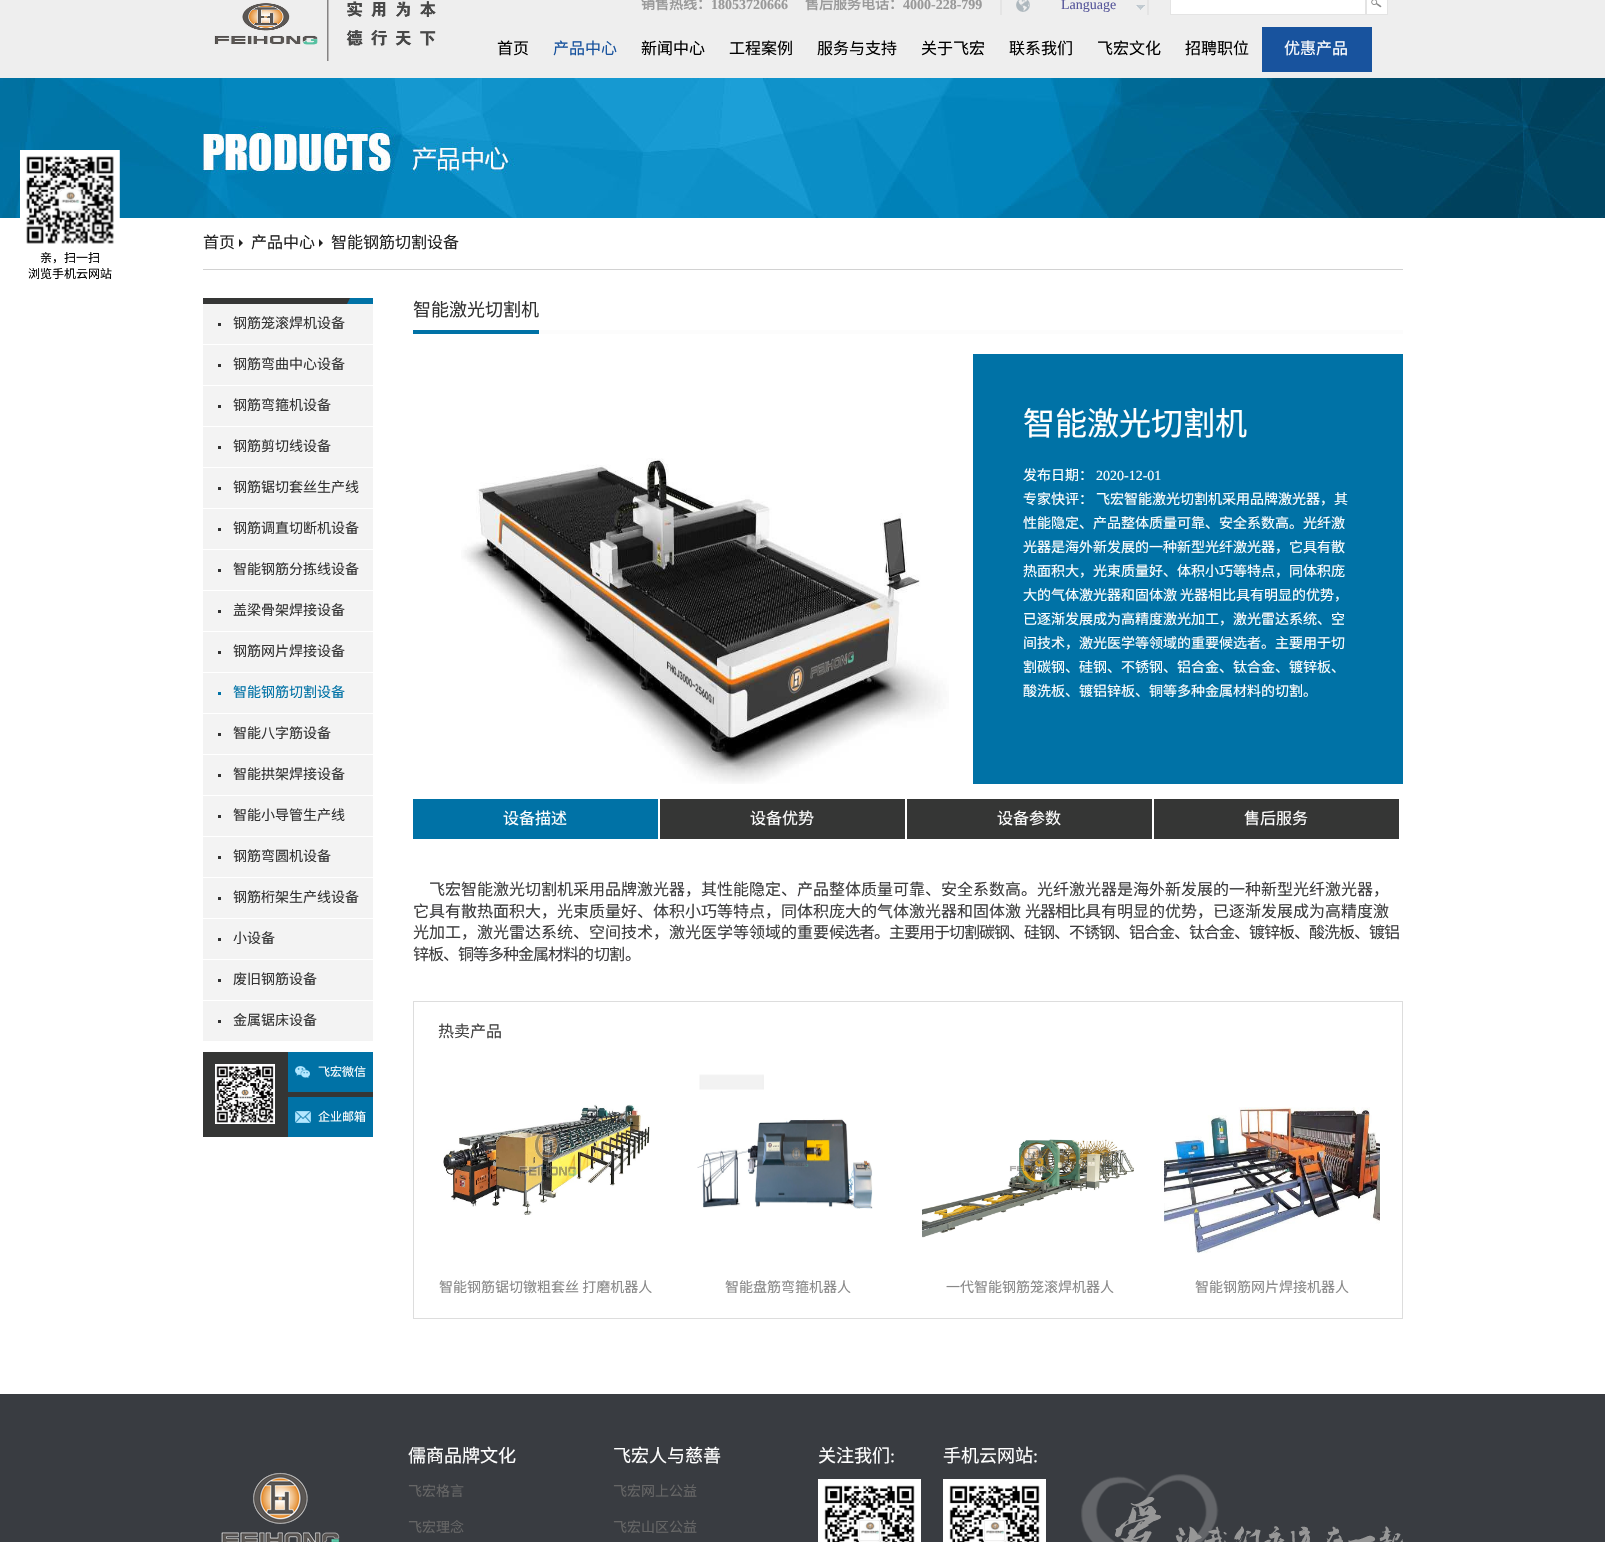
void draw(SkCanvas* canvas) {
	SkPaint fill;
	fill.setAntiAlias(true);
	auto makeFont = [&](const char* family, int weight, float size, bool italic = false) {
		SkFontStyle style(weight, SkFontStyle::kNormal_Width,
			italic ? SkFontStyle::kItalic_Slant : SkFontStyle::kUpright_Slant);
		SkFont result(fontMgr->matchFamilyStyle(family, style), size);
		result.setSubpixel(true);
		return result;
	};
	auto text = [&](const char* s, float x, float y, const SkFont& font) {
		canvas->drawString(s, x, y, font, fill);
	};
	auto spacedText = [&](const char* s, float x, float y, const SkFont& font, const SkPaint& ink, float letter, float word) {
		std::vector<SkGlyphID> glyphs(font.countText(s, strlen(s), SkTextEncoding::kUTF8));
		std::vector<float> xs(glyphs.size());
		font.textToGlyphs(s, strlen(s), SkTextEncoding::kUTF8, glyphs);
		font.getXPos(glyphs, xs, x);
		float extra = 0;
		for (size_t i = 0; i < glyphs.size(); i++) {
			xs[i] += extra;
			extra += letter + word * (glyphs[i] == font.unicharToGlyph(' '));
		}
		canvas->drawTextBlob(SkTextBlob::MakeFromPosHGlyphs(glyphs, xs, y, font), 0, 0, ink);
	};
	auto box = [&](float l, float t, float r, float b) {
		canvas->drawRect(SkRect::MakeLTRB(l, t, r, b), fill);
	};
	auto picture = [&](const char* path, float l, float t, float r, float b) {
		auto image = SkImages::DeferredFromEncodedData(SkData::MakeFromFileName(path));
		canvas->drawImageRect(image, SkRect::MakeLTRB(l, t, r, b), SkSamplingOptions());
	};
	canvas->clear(0xFFFFFFFF);
	fill.setColor(0xFFEEEEEE);
	box(0, 0, 1605, 78);
	picture("image0.png", 214, 0, 436, 61);
	picture("image1.png", 1016, 0, 1030, 12);
	fill.setColor(0xFFE4E4E4);
	box(1147, 0, 1149, 15);
	box(1000, 0, 1002, 15);
	picture("image2.png", 1136, 5, 1145, 10);
	fill.setColor(0xFFFFFFFF);
	canvas->drawRect(SkRect::MakeLTRB(1170.5f, -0.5f, 1365.5f, 14.5f), fill);
	fill.setStyle(SkPaint::kStroke_Style);
	fill.setStrokeWidth(1);
	fill.setColor(0xFFE4E4E4);
	canvas->drawRect(SkRect::MakeLTRB(1170.5f, -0.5f, 1365.5f, 14.5f), fill);
	fill.setStyle(SkPaint::kFill_Style);
	fill.setColor(0xFFFFFFFF);
	canvas->drawRect(SkRect::MakeLTRB(1366.5f, -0.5f, 1387.5f, 14.5f), fill);
	fill.setStyle(SkPaint::kStroke_Style);
	fill.setColor(0xFFE4E4E4);
	canvas->drawRect(SkRect::MakeLTRB(1366.5f, -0.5f, 1387.5f, 14.5f), fill);
	picture("image3.png", 1371, 0, 1382, 8);
	fill.setStyle(SkPaint::kFill_Style);
	fill.setColor(0xFF18539E);
	box(1262, 27, 1372, 72);
	picture("image4.png", 0, 78, 1605, 218);
	picture("image5.png", 20, 150, 120, 244);
	fill.setColor(0xFFD2D2D2);
	box(203, 269, 1403, 270);
	fill.setColor(0xFF222222);
	canvas->drawPath(SkPathBuilder().moveTo(239, 247).lineTo(239, 239).lineTo(243, 243).close().detach(), fill);
	canvas->drawPath(SkPathBuilder().moveTo(319, 247).lineTo(319, 239).lineTo(323, 243).close().detach(), fill);
	fill.setColor(0xFFFCFCFC);
	box(539, 330, 1403, 334);
	fill.setColor(0xFF0072A6);
	box(413, 330, 539, 334);
	picture("image6.png", 461, 458, 949, 784);
	box(973, 354, 1403, 784);
	box(413, 799, 658, 839);
	fill.setColor(0xFF353635);
	box(660, 799, 905, 839);
	box(907, 799, 1152, 839);
	box(1154, 799, 1399, 839);
	fill.setStyle(SkPaint::kStroke_Style);
	fill.setColor(0xFFDDDDDD);
	canvas->drawRect(SkRect::MakeLTRB(413.5f, 1001.5f, 1402.5f, 1318.5f), fill);
	picture("image7.png", 443, 1104, 650, 1215);
	picture("image8.png", 697, 1074, 873, 1209);
	picture("image9.png", 922, 1139, 1134, 1238);
	picture("image10.png", 1164, 1107, 1380, 1254);
	picture("image11.png", 203, 298, 373, 304);
	fill.setStyle(SkPaint::kFill_Style);
	fill.setColor(0xFFF3F3F3);
	box(203, 304, 373, 344);
	fill.setColor(0xFF333333);
	box(218, 323, 221, 326);
	fill.setColor(0xFFF3F3F3);
	box(203, 345, 373, 385);
	fill.setColor(0xFF333333);
	box(218, 364, 221, 367);
	fill.setColor(0xFFF3F3F3);
	box(203, 386, 373, 426);
	fill.setColor(0xFF333333);
	box(218, 405, 221, 408);
	fill.setColor(0xFFF3F3F3);
	box(203, 427, 373, 467);
	fill.setColor(0xFF333333);
	box(218, 446, 221, 449);
	fill.setColor(0xFFF3F3F3);
	box(203, 468, 373, 508);
	fill.setColor(0xFF333333);
	box(218, 487, 221, 490);
	fill.setColor(0xFFF3F3F3);
	box(203, 509, 373, 549);
	fill.setColor(0xFF333333);
	box(218, 528, 221, 531);
	fill.setColor(0xFFF3F3F3);
	box(203, 550, 373, 590);
	fill.setColor(0xFF333333);
	box(218, 569, 221, 572);
	fill.setColor(0xFFF3F3F3);
	box(203, 591, 373, 631);
	fill.setColor(0xFF333333);
	box(218, 610, 221, 613);
	fill.setColor(0xFFF3F3F3);
	box(203, 632, 373, 672);
	fill.setColor(0xFF333333);
	box(218, 651, 221, 654);
	fill.setColor(0xFFF3F3F3);
	box(203, 673, 373, 713);
	fill.setColor(0xFF0072A6);
	box(218, 692, 221, 695);
	fill.setColor(0xFFF3F3F3);
	box(203, 714, 373, 754);
	fill.setColor(0xFF333333);
	box(218, 733, 221, 736);
	fill.setColor(0xFFF3F3F3);
	box(203, 755, 373, 795);
	fill.setColor(0xFF333333);
	box(218, 774, 221, 777);
	fill.setColor(0xFFF3F3F3);
	box(203, 796, 373, 836);
	fill.setColor(0xFF333333);
	box(218, 815, 221, 818);
	fill.setColor(0xFFF3F3F3);
	box(203, 837, 373, 877);
	fill.setColor(0xFF333333);
	box(218, 856, 221, 859);
	fill.setColor(0xFFF3F3F3);
	box(203, 878, 373, 918);
	fill.setColor(0xFF333333);
	box(218, 897, 221, 900);
	fill.setColor(0xFFF3F3F3);
	box(203, 919, 373, 959);
	fill.setColor(0xFF333333);
	box(218, 938, 221, 941);
	fill.setColor(0xFFF3F3F3);
	box(203, 960, 373, 1000);
	fill.setColor(0xFF333333);
	box(218, 979, 221, 982);
	fill.setColor(0xFFF3F3F3);
	box(203, 1001, 373, 1041);
	fill.setColor(0xFF333333);
	box(218, 1020, 221, 1023);
	fill.setColor(0xFF353635);
	box(203, 1052, 373, 1137);
	picture("image12.png", 215, 1064, 275, 1124);
	fill.setColor(0xFF0072A6);
	box(288, 1052, 373, 1092);
	picture("image13.png", 295, 1066, 310, 1078);
	box(288, 1097, 373, 1137);
	picture("image14.png", 295, 1111, 311, 1123);
	fill.setColor(0xFF393C41);
	box(0, 1394, 1605, 1542);
	picture("image15.png", 1081, 1474, 1403, 1542);
	picture("image16.png", 818, 1479, 921, 1542);
	picture("image17.png", 943, 1479, 1046, 1542);
	picture("image18.png", 221, 1472, 340, 1542);
	auto font1 = makeFont("Noto Sans CJK SC", 700, 14);
	fill.setColor(0xFF999999);
	text("销售热线：", 641, 9, font1);
	auto font2 = makeFont("Liberation Serif", 700, 14);
	text("18053720666", 711, 9, font2);
	text("售后服务电话：", 805, 9, font1);
	text("4000-228-799", 903, 9, font2);
	auto font3 = makeFont("Liberation Serif", 400, 14);
	fill.setColor(0xFF55559A);
	text("Language", 1061, 9, font3);
	auto font4 = makeFont("Noto Sans CJK SC", 400, 16);
	fill.setColor(0xFF000000);
	text("首页", 497, 54, font4);
	fill.setColor(0xFF18539E);
	text("产品中心", 553, 54, font4);
	fill.setColor(0xFF000000);
	text("新闻中心", 641, 54, font4);
	text("工程案例", 729, 54, font4);
	text("服务与支持", 817, 54, font4);
	text("关于飞宏", 921, 54, font4);
	text("联系我们", 1009, 54, font4);
	text("飞宏文化", 1097, 54, font4);
	text("招聘职位", 1185, 54, font4);
	fill.setColor(0xFFFFFFFF);
	text("优惠产品", 1284, 54, font4);
	auto font5 = makeFont("Noto Sans CJK SC", 400, 12);
	fill.setColor(0xFF000000);
	text("亲，扫一扫", 40, 262, font5);
	text("浏览手机云网站", 28, 278, font5);
	fill.setColor(0xFF222222);
	text("首页", 203, 248, font4);
	text("产品中心", 251, 248, font4);
	text("智能钢筋切割设备", 331, 248, font4);
	auto font6 = makeFont("Noto Sans CJK SC", 400, 18);
	fill.setColor(0xFF333333);
	text("智能激光切割机", 413, 316, font6);
	auto font7 = makeFont("Noto Sans CJK SC", 400, 32);
	fill.setColor(0xFFFFFFFF);
	text("智能激光切割机", 1023, 435, font7);
	auto font8 = makeFont("Noto Sans CJK SC", 400, 14);
	text("发布日期：", 1023, 480, font8);
	text("2020-12-01", 1096, 480, font3);
	text("专家快评：", 1023, 504, font8);
	text("飞宏智能激光切割机采用品牌激光器，其", 1096, 504, font8);
	text("性能隐定、产品整体质量可靠、安全系数高。光纤激", 1023, 528, font8);
	text("光器是海外新发展的一种新型光纤激光器，它具有散", 1023, 552, font8);
	text("热面积大，光束质量好、体积小巧等特点，同体积庞", 1023, 576, font8);
	text("大的气体激光器和固体激", 1023, 600, font8);
	text("光器相比具有明显的优势，", 1180, 600, font8);
	text("已逐渐发展成为高精度激光加工，激光雷达系统、空", 1023, 624, font8);
	text("间技术，激光医学等领域的重要候选者。主要用于切", 1023, 648, font8);
	text("割碳钢、硅钢、不锈钢、铝合金、钛合金、镀锌板、", 1023, 672, font8);
	text("酸洗板、镀铝锌板、铜等多种金属材料的切割。", 1023, 696, font8);
	text("设备描述", 503, 824, font4);
	text("设备优势", 750, 824, font4);
	text("设备参数", 997, 824, font4);
	text("售后服务", 1244, 824, font4);
	fill.setColor(0xFF3E3E3F);
	text("飞宏智能激光切割机采用品牌激光器，其性能隐定、产品整体质量可靠、安全系数高。光纤激光器是海外新发展的一种新型光纤激光器，", 429, 895, font4);
	text("它具有散热面积大，光束质量好、体积小巧等特点，同体积庞大的气体激光器和固体激", 413, 917, font4);
	spacedText("光器相比", 1025, 917, font4, fill, -1, 0);
	text("具有明显的优势，已逐渐发展成为高精度激", 1085, 917, font4);
	text("光加工，激光雷达系统、空间技术，激光医学等领域的重要", 413, 938, font4);
	spacedText("候选者。主要用于切割碳钢、硅钢、不锈钢、铝合金、钛合金、镀锌板、酸洗板、镀铝", 829, 938, font4, fill, -1, 0);
	spacedText("锌板、铜等多种金属材料", 413, 960, font4, fill, -1, 0);
	text("的", 578, 960, font4);
	spacedText("切", 594, 960, font4, fill, -1, 0);
	text("割。", 609, 960, font4);
	fill.setColor(0xFF444444);
	text("热卖产品", 438, 1037, font4);
	fill.setColor(0xFF888888);
	text("智能钢筋锯切镦粗套丝 打磨机器人", 439, 1292, font8);
	text("智能盘筋弯箍机器人", 725, 1292, font8);
	text("一代智能钢筋笼滚焊机器人", 946, 1292, font8);
	text("智能钢筋网片焊接机器人", 1195, 1292, font8);
	fill.setColor(0xFF333333);
	text("钢筋笼滚焊机设备", 233, 328, font8);
	text("钢筋弯曲中心设备", 233, 369, font8);
	text("钢筋弯箍机设备", 233, 410, font8);
	text("钢筋剪切线设备", 233, 451, font8);
	text("钢筋锯切套丝生产线", 233, 492, font8);
	text("钢筋调直切断机设备", 233, 533, font8);
	text("智能钢筋分拣线设备", 233, 574, font8);
	text("盖梁骨架焊接设备", 233, 615, font8);
	text("钢筋网片焊接设备", 233, 656, font8);
	fill.setColor(0xFF0072A6);
	text("智能钢筋切割设备", 233, 697, font8);
	fill.setColor(0xFF333333);
	text("智能八字筋设备", 233, 738, font8);
	text("智能拱架焊接设备", 233, 779, font8);
	text("智能小导管生产线", 233, 820, font8);
	text("钢筋弯圆机设备", 233, 861, font8);
	text("钢筋桁架生产线设备", 233, 902, font8);
	text("小设备", 233, 943, font8);
	text("废旧钢筋设备", 233, 984, font8);
	text("金属锯床设备", 233, 1025, font8);
	fill.setColor(0xFFFFFFFF);
	text("飞宏微信", 318, 1076, font5);
	text("企业邮箱", 318, 1121, font5);
	text("儒商品牌文化", 408, 1462, font6);
	fill.setColor(0xFF666666);
	text("飞宏格言", 408, 1496, font8);
	text("飞宏理念", 408, 1532, font8);
	fill.setColor(0xFFFFFFFF);
	text("飞宏人与慈善", 613, 1462, font6);
	fill.setColor(0xFF666666);
	text("飞宏网上公益", 613, 1496, font8);
	text("飞宏山区公益", 613, 1532, font8);
	fill.setColor(0xFFFFFFFF);
	text("关注我们", 818, 1462, font6);
	auto font9 = makeFont("Liberation Serif", 400, 18);
	text(":", 890, 1462, font9);
	text("手机云网站", 943, 1462, font6);
	text(":", 1033, 1462, font9);
}
